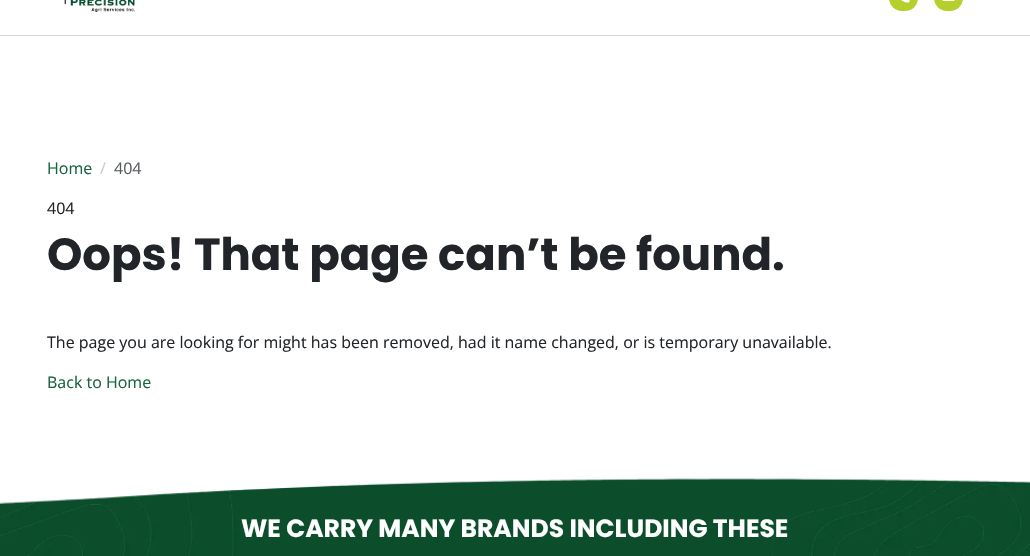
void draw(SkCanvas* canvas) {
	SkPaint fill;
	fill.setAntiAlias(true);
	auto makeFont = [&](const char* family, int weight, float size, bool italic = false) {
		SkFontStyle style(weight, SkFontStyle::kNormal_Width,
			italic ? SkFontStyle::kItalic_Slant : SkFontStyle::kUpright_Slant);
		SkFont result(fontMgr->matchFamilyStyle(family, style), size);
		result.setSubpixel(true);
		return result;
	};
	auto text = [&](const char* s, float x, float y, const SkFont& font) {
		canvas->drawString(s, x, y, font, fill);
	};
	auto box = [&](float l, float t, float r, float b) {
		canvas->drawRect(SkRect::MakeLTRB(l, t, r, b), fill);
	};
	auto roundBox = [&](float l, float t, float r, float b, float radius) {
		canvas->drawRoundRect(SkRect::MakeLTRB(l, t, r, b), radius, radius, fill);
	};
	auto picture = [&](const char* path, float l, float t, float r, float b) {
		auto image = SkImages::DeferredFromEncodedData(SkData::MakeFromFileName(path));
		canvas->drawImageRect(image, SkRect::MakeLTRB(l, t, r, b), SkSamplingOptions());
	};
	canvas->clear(0xFFFFFFFF);
	fill.setColor(0xFFD7D8D8);
	box(0, 35, 1030, 36);
	picture("image0.png", 64, 0, 135, 12);
	fill.setColor(0xFFB5CF2C);
	roundBox(889, -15, 918, 11, 14.5f);
	picture("image1.png", 901, 0, 910, 3);
	roundBox(934, -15, 963, 11, 14.5f);
	picture("image2.png", 942, 0, 955, 1);
	picture("image3.png", 0, 478, 1030, 556);
	picture("image4.png", 0, 414, 1030, 504);
	auto font1 = makeFont("Open Sans", 400, 16);
	fill.setColor(0xFF18633D);
	text("Home", 47, 174, font1);
	fill.setColor(0xFFCCCCCC);
	text("/", 100, 174, font1);
	fill.setColor(0xFF595C5F);
	text("404", 114, 174, font1);
	fill.setColor(0xFF212529);
	text("404", 47, 214, font1);
	auto font2 = makeFont("Poppins", 700, 45);
	text("Oops! That page can’t be found.", 47, 270, font2);
	text("The page you are looking for might has been removed, had it name changed, or is temporary unavailable.", 47, 348, font1);
	fill.setColor(0xFF18633D);
	text("Back to Home", 47, 388, font1);
	auto font3 = makeFont("Poppins", 700, 25);
	fill.setColor(0xFFFFFFFF);
	text("WE CARRY MANY BRANDS INCLUDING THESE", 241, 537, font3);
}
